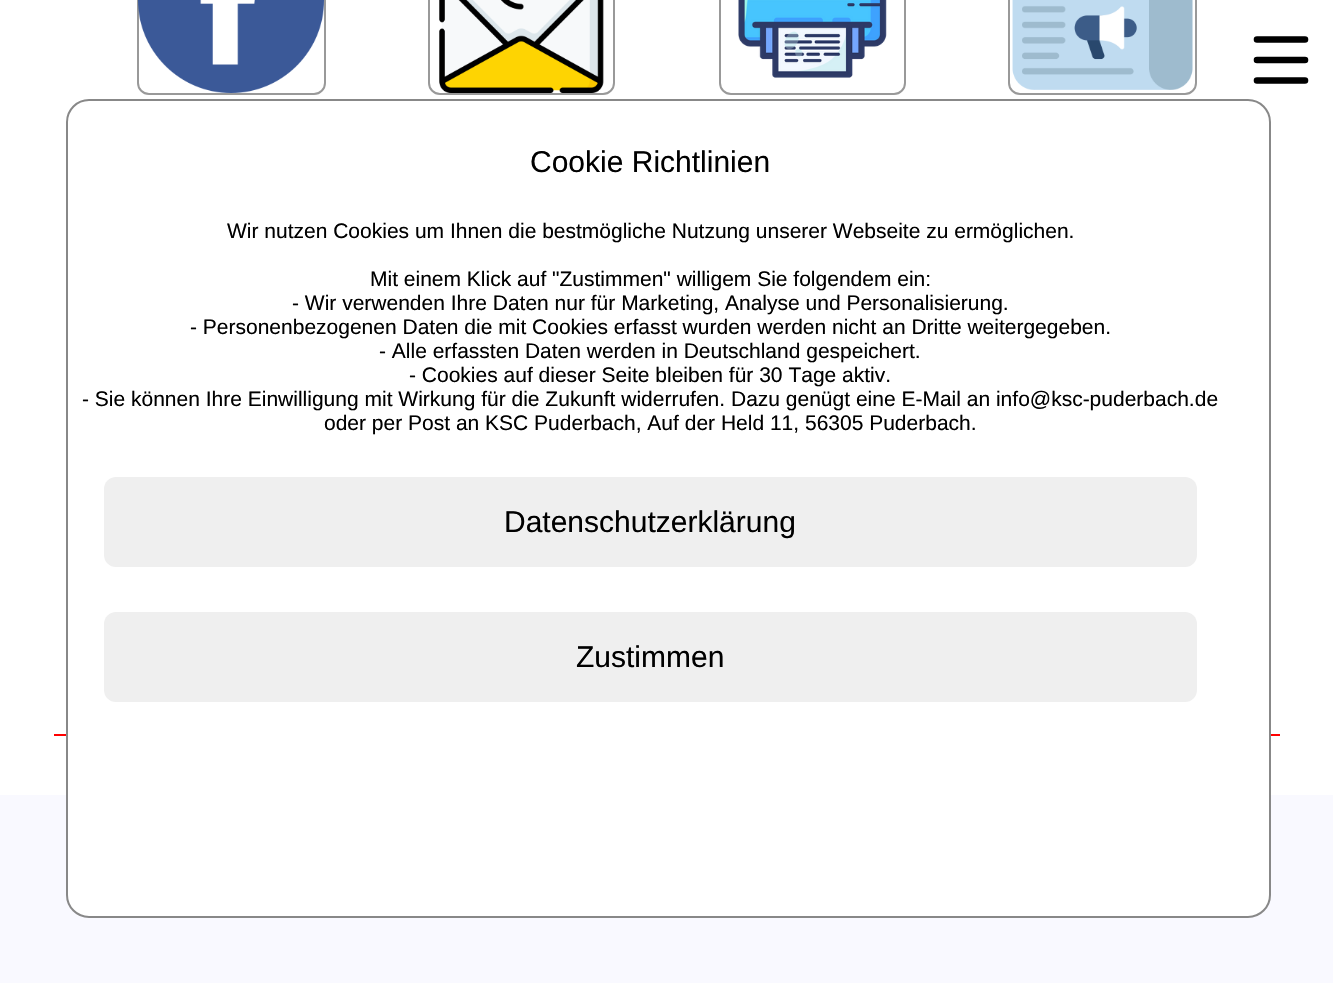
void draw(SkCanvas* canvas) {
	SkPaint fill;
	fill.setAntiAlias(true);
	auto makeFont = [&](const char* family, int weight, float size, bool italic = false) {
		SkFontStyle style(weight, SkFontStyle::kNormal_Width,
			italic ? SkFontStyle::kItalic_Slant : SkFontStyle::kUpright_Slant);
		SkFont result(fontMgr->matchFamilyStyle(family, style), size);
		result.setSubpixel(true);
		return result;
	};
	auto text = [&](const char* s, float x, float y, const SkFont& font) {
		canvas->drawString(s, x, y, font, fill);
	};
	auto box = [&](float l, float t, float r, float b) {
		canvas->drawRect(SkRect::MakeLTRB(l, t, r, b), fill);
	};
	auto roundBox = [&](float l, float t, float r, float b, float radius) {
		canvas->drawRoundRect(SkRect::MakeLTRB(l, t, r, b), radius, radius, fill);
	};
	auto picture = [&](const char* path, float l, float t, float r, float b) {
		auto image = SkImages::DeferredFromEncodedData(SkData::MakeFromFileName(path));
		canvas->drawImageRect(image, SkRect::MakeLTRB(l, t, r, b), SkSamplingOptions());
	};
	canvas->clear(0xFFFFFFFF);
	fill.setStyle(SkPaint::kStroke_Style);
	fill.setStrokeWidth(2);
	fill.setColor(0xFF999999);
	canvas->drawRoundRect(SkRect::MakeLTRB(138, -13, 325, 94), 11, 11, fill);
	picture("image0.png", 138, 0, 324, 93);
	canvas->drawRoundRect(SkRect::MakeLTRB(429, -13, 614, 94), 11, 11, fill);
	picture("image1.png", 439, 0, 604, 93);
	canvas->drawRoundRect(SkRect::MakeLTRB(720, -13, 905, 94), 11, 11, fill);
	picture("image2.png", 738, 0, 887, 78);
	canvas->drawRoundRect(SkRect::MakeLTRB(1009, -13, 1196, 94), 11, 11, fill);
	picture("image3.png", 1012, 0, 1193, 90);
	fill.setStyle(SkPaint::kFill_Style);
	fill.setColor(0xFFFF0000);
	box(54, 734, 1280, 736);
	fill.setColor(0xFFF9F9FF);
	box(0, 795, 1333, 983);
	fill.setStyle(SkPaint::kStroke_Style);
	fill.setStrokeWidth(6.6f);
	fill.setStrokeCap(SkPaint::kRound_Cap);
	fill.setColor(0xFF000000);
	canvas->drawPath(SkPathBuilder().moveTo(1257, 39.5f).lineTo(1305, 39.5f).moveTo(1257, 60).lineTo(1305, 60).moveTo(1257, 80.5f).lineTo(1305, 80.5f).detach(), fill);
	fill.setStyle(SkPaint::kFill_Style);
	fill.setColor(0xFFFFFFFF);
	canvas->drawRoundRect(SkRect::MakeLTRB(67, 100, 1270, 917), 22, 22, fill);
	fill.setStyle(SkPaint::kStroke_Style);
	fill.setStrokeWidth(2);
	fill.setStrokeCap(SkPaint::kButt_Cap);
	fill.setColor(0xFF888888);
	canvas->drawRoundRect(SkRect::MakeLTRB(67, 100, 1270, 917), 22, 22, fill);
	fill.setStyle(SkPaint::kFill_Style);
	fill.setColor(0xFFEFEFEF);
	roundBox(104, 477, 1197, 567, 12);
	roundBox(104, 612, 1197, 702, 12);
	auto font1 = makeFont("Liberation Sans", 400, 30);
	fill.setColor(0xFF000000);
	text("Cookie Richtlinien", 530, 172, font1);
	auto font2 = makeFont("Liberation Sans", 400, 21);
	text("Wir nutzen Cookies um Ihnen die bestmögliche Nutzung unserer Webseite zu ermöglichen.", 227, 238, font2);
	text("Mit einem Klick auf \"Zustimmen\" willigem Sie folgendem ein:", 370, 286, font2);
	text("- Wir verwenden Ihre Daten nur für Marketing, Analyse und Personalisierung.", 292, 310, font2);
	text("- Personenbezogenen Daten die mit Cookies erfasst wurden werden nicht an Dritte weitergegeben.", 190, 334, font2);
	text("- Alle erfassten Daten werden in Deutschland gespeichert.", 379, 358, font2);
	text("- Cookies auf dieser Seite bleiben für 30 Tage aktiv.", 409, 382, font2);
	text("- Sie können Ihre Einwilligung mit Wirkung für die Zukunft widerrufen. Dazu genügt eine E-Mail an info@ksc-puderbach.de", 82, 406, font2);
	text("oder per Post an KSC Puderbach, Auf der Held 11, 56305 Puderbach.", 324, 430, font2);
	text("Datenschutzerklärung", 504, 532, font1);
	text("Zustimmen", 576, 667, font1);
}
